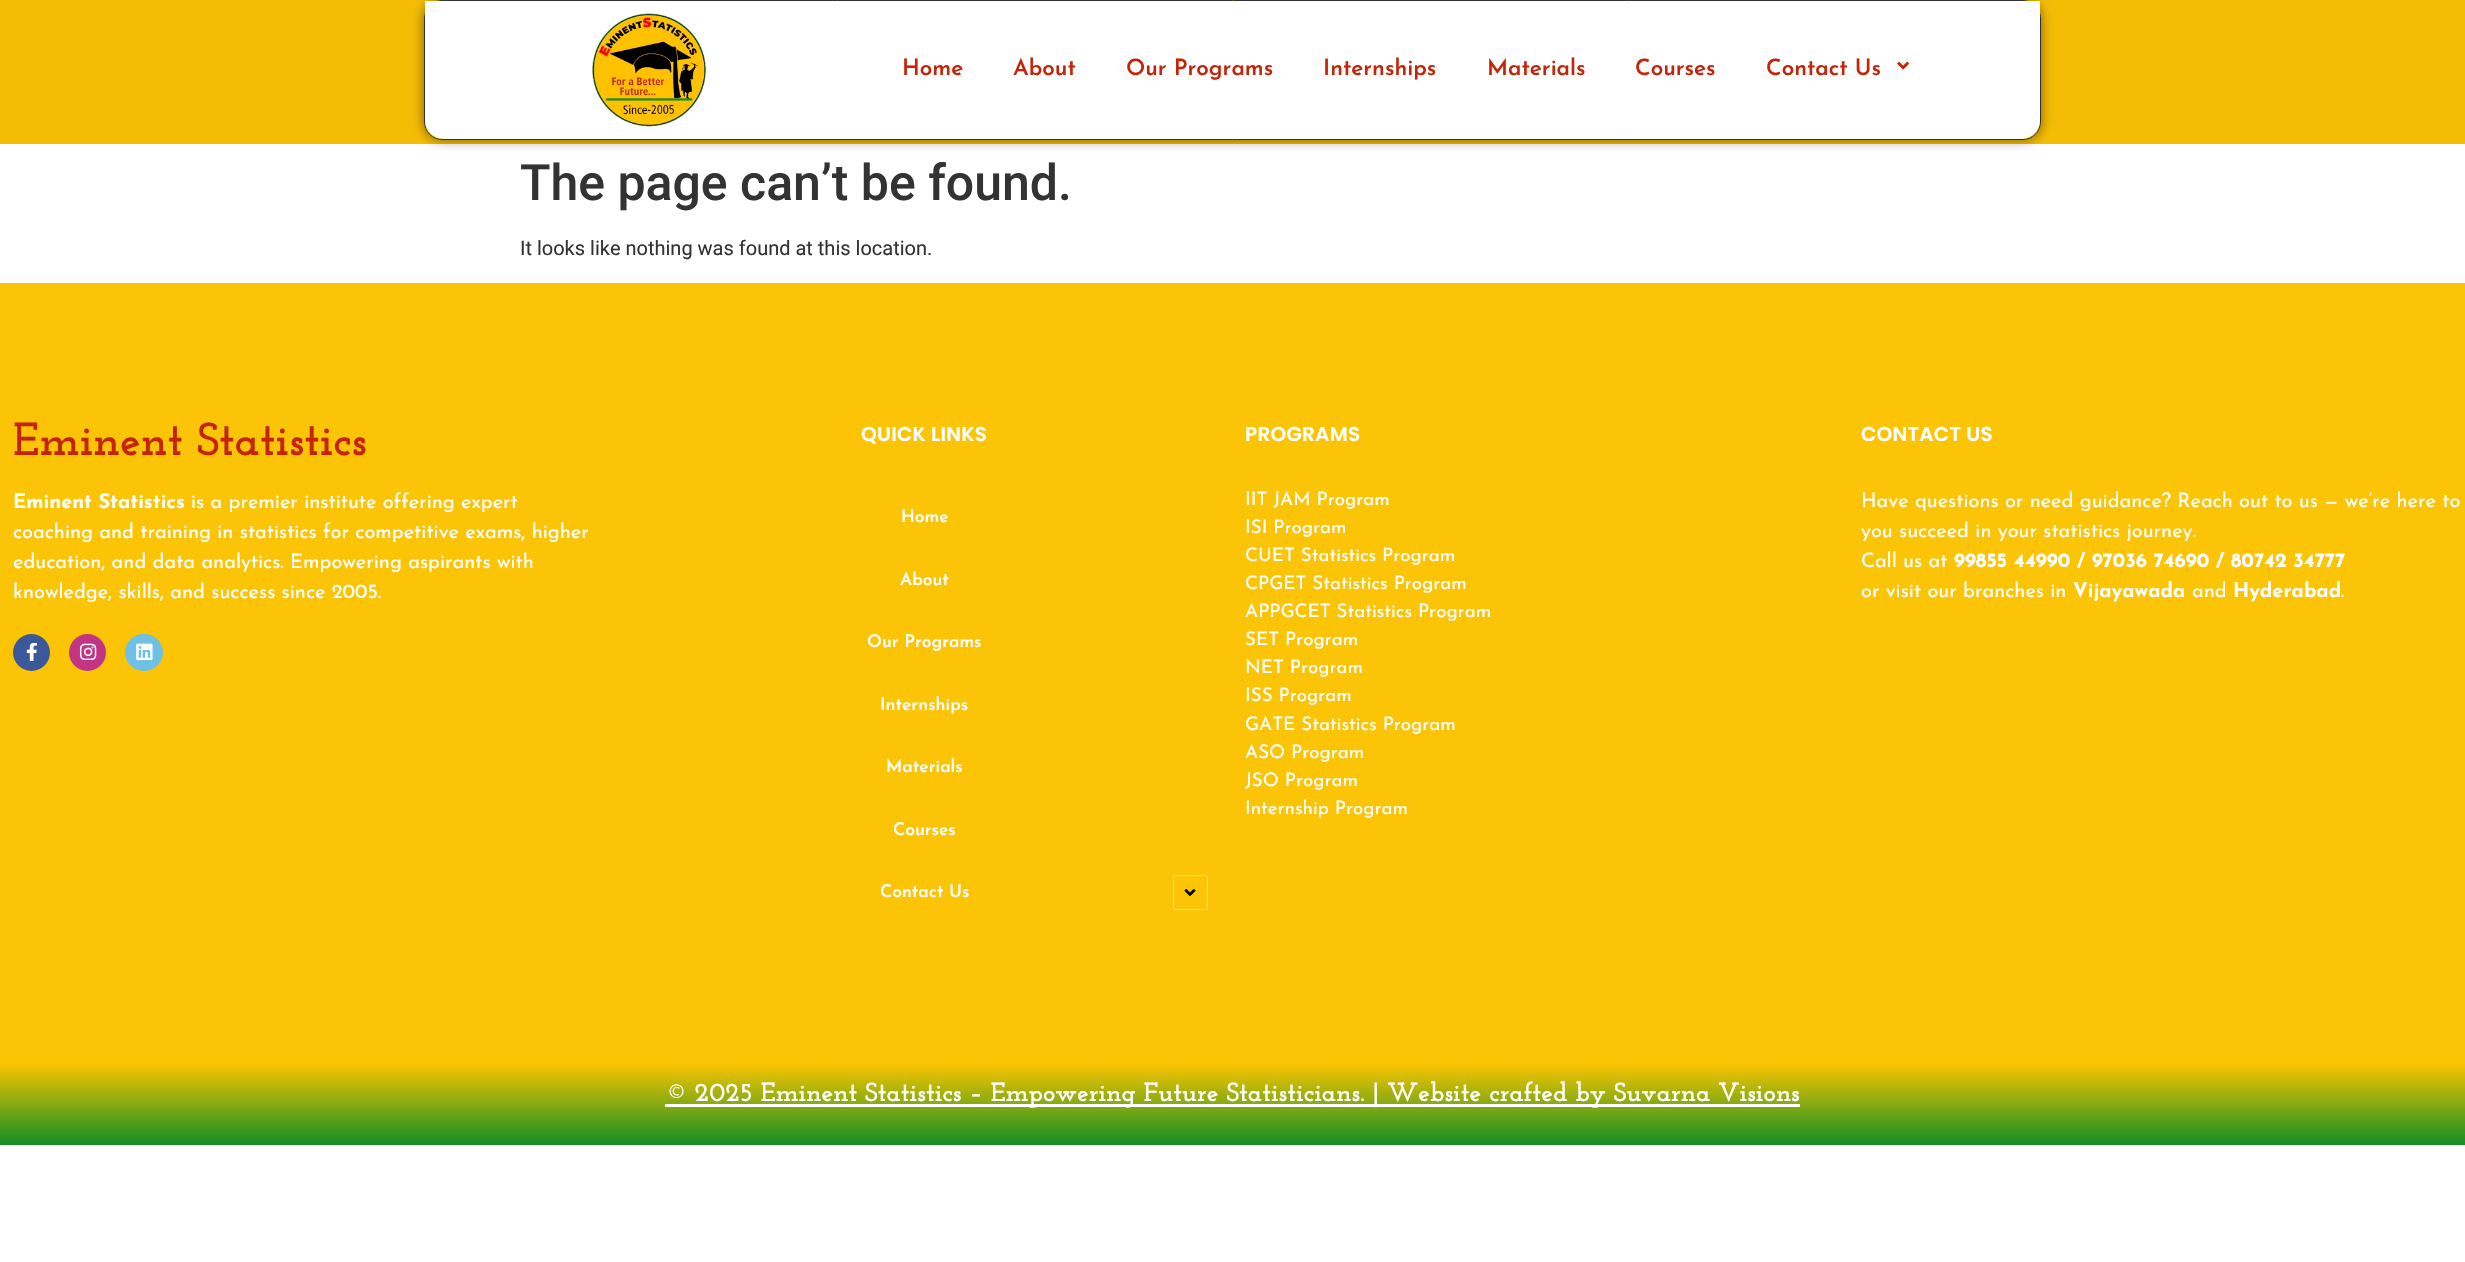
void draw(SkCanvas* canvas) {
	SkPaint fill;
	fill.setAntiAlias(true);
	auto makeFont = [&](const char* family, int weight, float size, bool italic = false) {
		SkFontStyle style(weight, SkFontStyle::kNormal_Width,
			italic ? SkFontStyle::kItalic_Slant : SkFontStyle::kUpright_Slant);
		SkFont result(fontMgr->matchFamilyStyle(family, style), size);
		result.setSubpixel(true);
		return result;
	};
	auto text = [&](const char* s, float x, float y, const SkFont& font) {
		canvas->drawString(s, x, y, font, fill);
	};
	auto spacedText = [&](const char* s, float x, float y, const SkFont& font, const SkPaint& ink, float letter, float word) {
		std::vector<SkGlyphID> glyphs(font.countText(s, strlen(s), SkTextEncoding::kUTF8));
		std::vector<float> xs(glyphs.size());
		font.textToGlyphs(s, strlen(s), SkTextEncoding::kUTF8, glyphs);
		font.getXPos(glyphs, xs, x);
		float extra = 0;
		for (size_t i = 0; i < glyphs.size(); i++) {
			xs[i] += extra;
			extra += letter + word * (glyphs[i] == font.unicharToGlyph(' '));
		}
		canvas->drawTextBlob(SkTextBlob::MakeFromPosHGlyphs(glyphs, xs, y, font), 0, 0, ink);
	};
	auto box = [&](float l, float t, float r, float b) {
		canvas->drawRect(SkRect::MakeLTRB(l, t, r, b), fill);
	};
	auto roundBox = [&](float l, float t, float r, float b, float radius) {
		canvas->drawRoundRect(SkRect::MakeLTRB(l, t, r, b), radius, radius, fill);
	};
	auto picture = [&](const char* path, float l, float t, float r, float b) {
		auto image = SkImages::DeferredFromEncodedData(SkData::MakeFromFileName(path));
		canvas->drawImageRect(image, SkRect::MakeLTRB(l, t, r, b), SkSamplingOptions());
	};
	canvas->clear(0xFFFFFFFF);
	fill.setColor(0xFFF4BC05);
	box(0, 0, 2465, 144);
	canvas->save();
	canvas->clipPath(SkPathBuilder(SkPathFillType::kEvenOdd).moveTo(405, 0).lineTo(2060, 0).lineTo(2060, 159).lineTo(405, 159).close().moveTo(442, 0).lineTo(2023, 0).cubicTo(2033, 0, 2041, 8, 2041, 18).lineTo(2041, 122).cubicTo(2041, 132, 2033, 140, 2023, 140).lineTo(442, 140).cubicTo(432, 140, 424, 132, 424, 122).lineTo(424, 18).cubicTo(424, 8, 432, 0, 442, 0).close().detach(), true);
	fill.setColor(0x80000000);
	fill.setMaskFilter(SkMaskFilter::MakeBlur(kNormal_SkBlurStyle, 6));
	canvas->drawRoundRect(SkRect::MakeLTRB(424, 0, 2041, 140), 18, 18, fill);
	fill.setMaskFilter(nullptr);
	canvas->restore();
	fill.setStyle(SkPaint::kStroke_Style);
	fill.setStrokeWidth(1);
	fill.setColor(0xFF333333);
	canvas->drawRoundRect(SkRect::MakeLTRB(424.5f, 0.5f, 2040.5f, 139.5f), 17.5f, 17.5f, fill);
	fill.setStyle(SkPaint::kFill_Style);
	fill.setColor(0xFFFFFFFF);
	canvas->drawPath(SkPathBuilder().moveTo(425, 1).lineTo(2040, 1).lineTo(2040, 120).cubicTo(2040, 130.5f, 2031.5f, 139, 2021, 139).lineTo(444, 139).cubicTo(433.5f, 139, 425, 130.5f, 425, 120).close().detach(), fill);
	picture("image0.png", 592, 13, 707, 127);
	picture("image1.png", 1897, 61, 1909, 70);
	fill.setColor(0xFFFBC407);
	box(0, 283, 2465, 1063);
	fill.setColor(0xFF3B5998);
	canvas->drawCircle(31.5f, 652.5f, 18.5f, fill);
	picture("image2.png", 26, 643, 37, 661);
	fill.setColor(0xFFC13584);
	canvas->drawCircle(87.5f, 652.5f, 18.5f, fill);
	picture("image3.png", 79, 643, 97, 660);
	fill.setColor(0xFF6EC1E4);
	roundBox(125, 634, 163, 671, 18.5f);
	picture("image4.png", 136, 643, 153, 661);
	fill.setStyle(SkPaint::kStroke_Style);
	fill.setColor(0xFFFDE283);
	canvas->drawRoundRect(SkRect::MakeLTRB(1173.5f, 875.5f, 1207.5f, 909.5f), 2, 2, fill);
	picture("image5.png", 1184, 889, 1196, 896);
	fill.setStyle(SkPaint::kFill_Style);
	{
		const SkColor colors[] = {0xFFFFC600, 0xFF128E24};
		const float stops[] = {0, 1};
		const SkPoint ends[] = {{1233, 1062}, {1233, 1145}};
		fill.setShader(SkGradientShader::MakeLinear(ends, colors, stops, 2, SkTileMode::kClamp));
		fill.setAlpha(255);
	}
	box(0, 1063, 2465, 1145);
	fill.setShader(nullptr);
	fill.setColor(0xFFFFFFFF);
	box(665, 1104, 1800, 1107);
	auto font1 = makeFont("Josefin Sans", 600, 22.5f);
	fill.setColor(0xFFC52408);
	text("Home", 902, 75, font1);
	text("About", 1013, 75, font1);
	text("Our Programs", 1126, 75, font1);
	text("Internships", 1323, 75, font1);
	text("Materials", 1487, 75, font1);
	text("Courses", 1635, 75, font1);
	text("Contact Us", 1766, 75, font1);
	auto font2 = makeFont("Roboto", 500, 50);
	fill.setColor(0xFF333333);
	text("The page can’t be found.", 520, 200, font2);
	auto font3 = makeFont("Roboto", 400, 20);
	text("It looks like nothing was found at this location.", 520, 255, font3);
	auto font4 = makeFont("Josefin Slab", 700, 46.25f);
	fill.setColor(0xFFC52408);
	text("Eminent Statistics", 13, 455, font4);
	auto font5 = makeFont("Josefin Sans", 700, 20);
	fill.setColor(0xFFFFFFFF);
	text("Eminent Statistics", 13, 508, font5);
	auto font6 = makeFont("Josefin Sans", 400, 20);
	text("is a premier institute offering expert", 191, 508, font6);
	text("coaching and training in statistics for competitive exams, higher", 13, 538, font6);
	text("education, and data analytics. Empowering aspirants with", 13, 568, font6);
	text("knowledge, skills, and success since 2005.", 13, 598, font6);
	auto font7 = makeFont("Poppins", 600, 20);
	spacedText("QUICK LINKS", 861, 441, font7, fill, 0.25f, 0);
	auto font8 = makeFont("Josefin Sans", 600, 17.5f);
	text("Home", 901, 522, font8);
	text("About", 900, 585, font8);
	text("Our Programs", 867, 647, font8);
	text("Internships", 880, 710, font8);
	text("Materials", 886, 772, font8);
	text("Courses", 893, 835, font8);
	text("Contact Us", 880, 897, font8);
	spacedText("PROGRAMS", 1245, 441, font7, fill, 0.25f, 0);
	auto font9 = makeFont("Josefin Sans", 400, 18.75f);
	text("IIT JAM Program", 1245, 505, font9);
	text("ISI Program", 1245, 533, font9);
	text("CUET Statistics Program", 1245, 561, font9);
	text("CPGET Statistics Program", 1245, 589, font9);
	text("APPGCET Statistics Program", 1245, 617, font9);
	text("SET Program", 1245, 645, font9);
	text("NET Program", 1245, 673, font9);
	text("ISS Program", 1245, 701, font9);
	text("GATE Statistics Program", 1245, 730, font9);
	text("ASO Program", 1245, 758, font9);
	text("JSO Program", 1245, 786, font9);
	text("Internship Program", 1245, 814, font9);
	spacedText("CONTACT US", 1861, 441, font7, fill, 0.25f, 0);
	text("Have questions or need guidance? Reach out to us — we’re here to", 1861, 507, font6);
	text("you succeed in your statistics journey.", 1861, 537, font6);
	text("Call us at", 1861, 567, font6);
	text("99855 44990 / 97036 74690 / 80742 34777", 1954, 567, font5);
	text("or visit our branches in", 1861, 597, font6);
	text("Vijayawada", 2073, 597, font5);
	text("and", 2192, 597, font6);
	text("Hyderabad", 2233, 597, font5);
	text(".", 2341, 597, font6);
	auto font10 = makeFont("Josefin Slab", 700, 26.25f);
	text("© 2025 Eminent Statistics – Empowering Future Statisticians. | Website crafted by Suvarna Visions", 666, 1101, font10);
}
